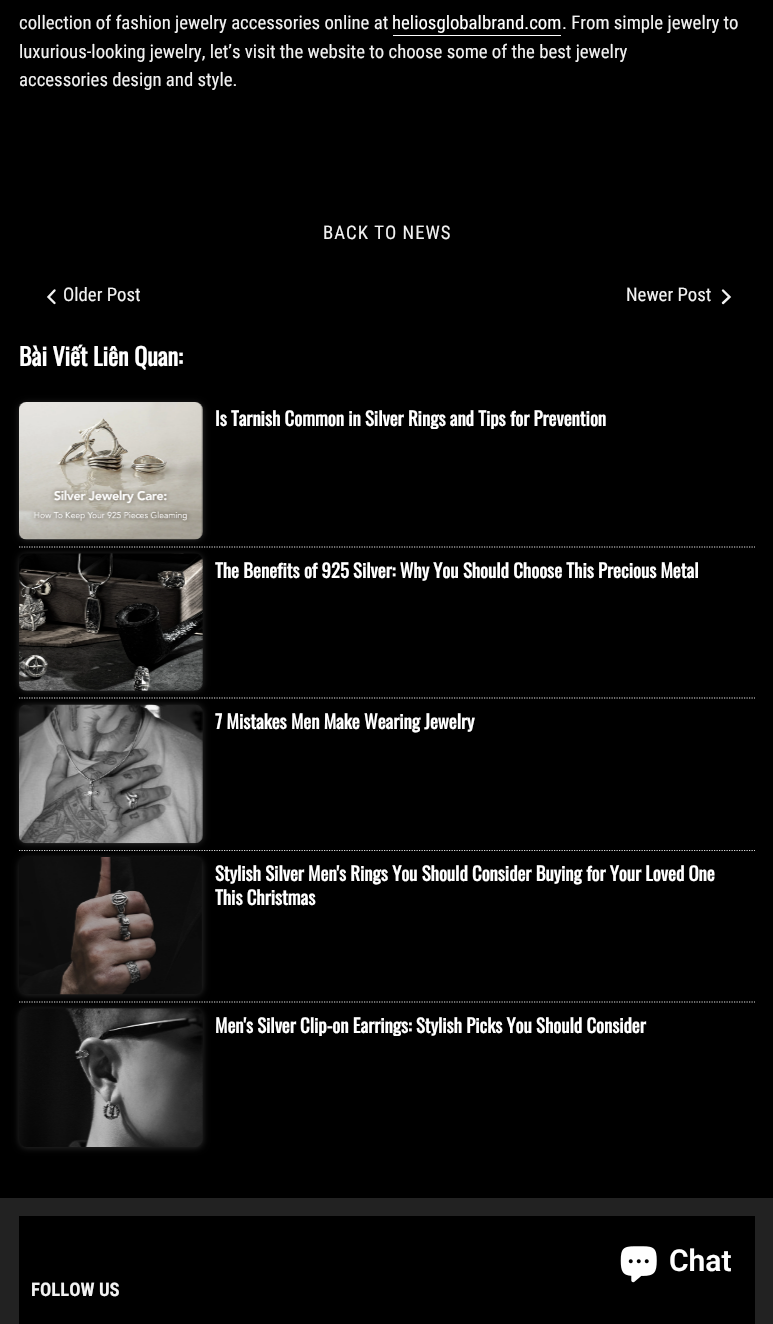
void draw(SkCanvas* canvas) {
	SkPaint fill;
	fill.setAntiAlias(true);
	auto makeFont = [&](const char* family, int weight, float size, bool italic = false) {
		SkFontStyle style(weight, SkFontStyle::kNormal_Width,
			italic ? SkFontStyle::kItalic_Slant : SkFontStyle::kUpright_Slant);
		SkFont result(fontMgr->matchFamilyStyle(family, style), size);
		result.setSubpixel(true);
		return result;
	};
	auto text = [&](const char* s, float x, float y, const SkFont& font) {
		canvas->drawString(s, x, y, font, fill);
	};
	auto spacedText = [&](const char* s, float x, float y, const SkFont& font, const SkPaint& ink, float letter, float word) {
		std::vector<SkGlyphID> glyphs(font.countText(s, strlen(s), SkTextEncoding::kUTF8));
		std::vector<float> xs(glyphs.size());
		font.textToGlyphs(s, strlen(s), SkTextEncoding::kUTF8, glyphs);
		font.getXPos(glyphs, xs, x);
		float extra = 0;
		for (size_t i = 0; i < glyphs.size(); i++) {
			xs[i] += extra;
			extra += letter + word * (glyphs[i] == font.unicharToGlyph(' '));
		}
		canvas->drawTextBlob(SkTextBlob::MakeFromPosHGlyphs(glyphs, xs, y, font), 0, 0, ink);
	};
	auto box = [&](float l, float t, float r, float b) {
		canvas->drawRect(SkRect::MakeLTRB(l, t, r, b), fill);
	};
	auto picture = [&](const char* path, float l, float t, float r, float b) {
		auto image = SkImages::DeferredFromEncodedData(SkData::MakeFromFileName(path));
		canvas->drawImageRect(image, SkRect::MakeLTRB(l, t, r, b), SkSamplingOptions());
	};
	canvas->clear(0xFF000000);
	fill.setColor(0xFFFFFFFF);
	box(393, 35, 561, 36);
	fill.setStyle(SkPaint::kStroke_Style);
	fill.setStrokeWidth(2.4f);
	fill.setStrokeCap(SkPaint::kRound_Cap);
	fill.setColor(0xFFF2F2F2);
	canvas->drawPath(SkPathBuilder().moveTo(54.5f, 290.5f).lineTo(48.5f, 297).lineTo(54.5f, 303).detach(), fill);
	canvas->drawPath(SkPathBuilder().moveTo(723, 303).lineTo(729.5f, 297).lineTo(723, 290.5f).detach(), fill);
	fill.setStrokeWidth(1.2f);
	fill.setStrokeCap(SkPaint::kButt_Cap);
	fill.setColor(0xFFDDDDDD);
	fill.setPathEffect(SkDashPathEffect::Make({{1.25f, 1.25f}}, 0));
	canvas->drawPath(SkPathBuilder().moveTo(19, 547).lineTo(755, 547).detach(), fill);
	fill.setPathEffect(nullptr);
	fill.setStyle(SkPaint::kFill_Style);
	fill.setColor(0x52808080);
	fill.setMaskFilter(SkMaskFilter::MakeBlur(kNormal_SkBlurStyle, 3));
	canvas->drawRoundRect(SkRect::MakeLTRB(19, 403, 203, 540), 8, 8, fill);
	fill.setMaskFilter(nullptr);
	picture("image0.png", 19, 402, 203, 540);
	fill.setStyle(SkPaint::kStroke_Style);
	fill.setColor(0xFFDDDDDD);
	fill.setPathEffect(SkDashPathEffect::Make({{1.25f, 1.25f}}, 0));
	canvas->drawPath(SkPathBuilder().moveTo(19, 698).lineTo(755, 698).detach(), fill);
	fill.setPathEffect(nullptr);
	fill.setStyle(SkPaint::kFill_Style);
	fill.setColor(0x52808080);
	fill.setMaskFilter(SkMaskFilter::MakeBlur(kNormal_SkBlurStyle, 3));
	canvas->drawRoundRect(SkRect::MakeLTRB(19, 554, 203, 691), 8, 8, fill);
	fill.setMaskFilter(nullptr);
	picture("image1.png", 19, 553, 203, 691);
	fill.setStyle(SkPaint::kStroke_Style);
	fill.setColor(0xFFDDDDDD);
	fill.setPathEffect(SkDashPathEffect::Make({{1.25f, 1.25f}}, 0));
	canvas->drawPath(SkPathBuilder().moveTo(19, 850.5f).lineTo(755, 850.5f).detach(), fill);
	fill.setPathEffect(nullptr);
	fill.setStyle(SkPaint::kFill_Style);
	fill.setColor(0x52808080);
	fill.setMaskFilter(SkMaskFilter::MakeBlur(kNormal_SkBlurStyle, 3));
	canvas->drawRoundRect(SkRect::MakeLTRB(19, 705, 203, 844), 8, 8, fill);
	fill.setMaskFilter(nullptr);
	picture("image2.png", 19, 704, 203, 844);
	fill.setStyle(SkPaint::kStroke_Style);
	fill.setColor(0xFFDDDDDD);
	fill.setPathEffect(SkDashPathEffect::Make({{1.25f, 1.25f}}, 0));
	canvas->drawPath(SkPathBuilder().moveTo(19, 1002).lineTo(755, 1002).detach(), fill);
	fill.setPathEffect(nullptr);
	fill.setStyle(SkPaint::kFill_Style);
	fill.setColor(0x52808080);
	fill.setMaskFilter(SkMaskFilter::MakeBlur(kNormal_SkBlurStyle, 3));
	canvas->drawRoundRect(SkRect::MakeLTRB(19, 858, 203, 995), 8, 8, fill);
	fill.setMaskFilter(nullptr);
	picture("image3.png", 19, 857, 202, 995);
	fill.setMaskFilter(SkMaskFilter::MakeBlur(kNormal_SkBlurStyle, 3));
	canvas->drawRoundRect(SkRect::MakeLTRB(19, 1009, 203, 1148), 8, 8, fill);
	fill.setMaskFilter(nullptr);
	picture("image4.png", 19, 1008, 203, 1147);
	fill.setColor(0xFF222222);
	box(0, 1198, 773, 1324);
	fill.setColor(0xFF000000);
	box(19, 1216, 755, 1324);
	picture("image5.png", 620, 1246, 657, 1283);
	auto font1 = makeFont("Roboto Condensed", 400, 18.75f);
	fill.setColor(0xFFF2F2F2);
	text("collection of fashion jewelry accessories online at", 19, 29, font1);
	fill.setColor(0xFFFFFFFF);
	text("heliosglobalbrand.com", 392, 29, font1);
	fill.setColor(0xFFF2F2F2);
	text(". From simple jewelry to", 562, 29, font1);
	text("luxurious-looking jewelry, let’s visit the website to choose some of the best jewelry", 19, 58, font1);
	text("accessories design and style.", 19, 86, font1);
	spacedText("BACK TO NEWS", 323, 239, font1, fill, 1, 0);
	text("Older Post", 63, 301, font1);
	text("Newer Post", 626, 301, font1);
	auto font2 = makeFont("Oswald", 700, 24);
	fill.setColor(0xFFFFFFFF);
	text("Bài Viết Liên Quan:", 19, 366, font2);
	canvas->save();
	canvas->clipRect(SkRect::MakeLTRB(215, 406, 738, 429));
	auto font3 = makeFont("Oswald", 700, 18.75f);
	text("Is Tarnish Common in Silver Rings and Tips for Prevention", 215, 426, font3);
	canvas->restore();
	text("The Benefits of 925 Silver: Why You Should Choose This Precious Metal", 215, 578, font3);
	text("7 Mistakes Men Make Wearing Jewelry", 215, 729, font3);
	text("Stylish Silver Men's Rings You Should Consider Buying for Your Loved One", 215, 881, font3);
	text("This Christmas", 215, 905, font3);
	canvas->save();
	canvas->clipRect(SkRect::MakeLTRB(215, 1013, 738, 1036));
	text("Men's Silver Clip-on Earrings: Stylish Picks You Should Consider", 215, 1033, font3);
	canvas->restore();
	auto font4 = makeFont("Roboto", 600, 30);
	text("Chat", 669, 1271, font4);
	auto font5 = makeFont("Roboto Condensed", 700, 18.75f);
	fill.setColor(0xFFF2F2F2);
	text("FOLLOW US", 31, 1296, font5);
}
